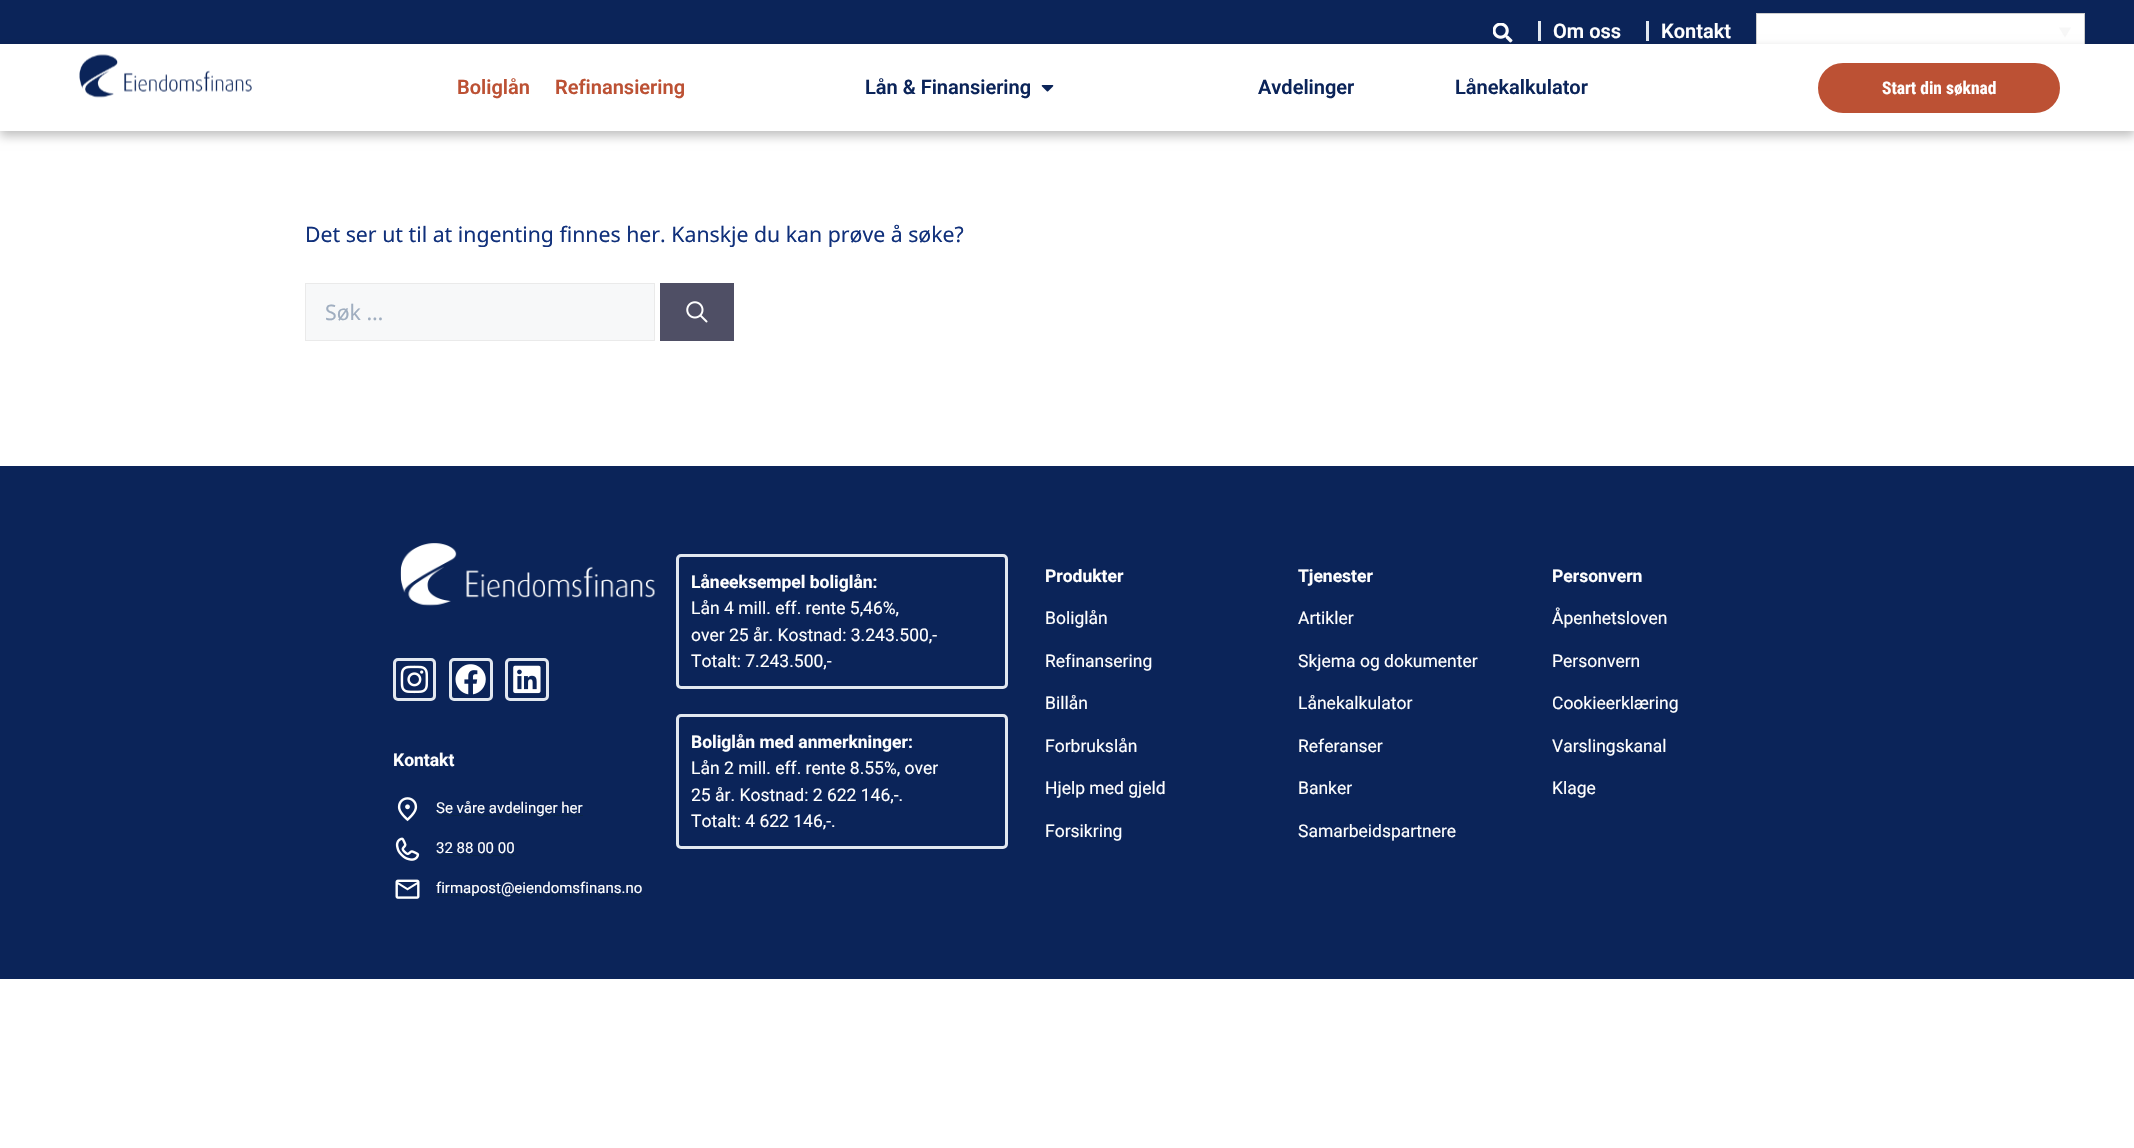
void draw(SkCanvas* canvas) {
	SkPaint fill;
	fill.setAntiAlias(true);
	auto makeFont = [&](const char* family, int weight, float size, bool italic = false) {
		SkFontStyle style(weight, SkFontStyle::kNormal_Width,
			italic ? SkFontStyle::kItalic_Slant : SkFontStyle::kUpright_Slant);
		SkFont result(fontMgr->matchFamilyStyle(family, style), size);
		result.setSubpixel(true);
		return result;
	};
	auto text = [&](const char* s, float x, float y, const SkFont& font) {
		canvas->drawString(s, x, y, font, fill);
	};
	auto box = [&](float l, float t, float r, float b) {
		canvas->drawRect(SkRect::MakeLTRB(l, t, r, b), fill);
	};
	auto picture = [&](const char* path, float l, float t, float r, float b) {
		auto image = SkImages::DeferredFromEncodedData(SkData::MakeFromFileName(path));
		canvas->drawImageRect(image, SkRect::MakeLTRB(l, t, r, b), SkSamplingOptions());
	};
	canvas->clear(0xFFFFFFFF);
	fill.setColor(0xFF0B2459);
	box(0, 0, 2134, 44);
	picture("image0.png", 1493, 23, 1513, 43);
	fill.setColor(0xFFE2E8F0);
	box(1538, 21, 1541, 41);
	box(1646, 21, 1649, 41);
	fill.setColor(0xFFFFFFFF);
	box(1757, 14, 2084, 44);
	fill.setStyle(SkPaint::kStroke_Style);
	fill.setStrokeWidth(1);
	fill.setColor(0xFFCDCDCD);
	canvas->drawRect(SkRect::MakeLTRB(1756.5f, 13.5f, 2084.5f, 50.5f), fill);
	fill.setStyle(SkPaint::kFill_Style);
	fill.setColor(0xFFF7F7F7);
	canvas->drawPath(SkPathBuilder().moveTo(2059, 27.5f).lineTo(2071, 27.5f).lineTo(2065, 37.5f).close().detach(), fill);
	fill.setColor(0x40000000);
	fill.setMaskFilter(SkMaskFilter::MakeBlur(kNormal_SkBlurStyle, 5));
	canvas->drawRect(SkRect::MakeLTRB(0, 49, 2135, 136), fill);
	fill.setMaskFilter(nullptr);
	fill.setColor(0xFFFFFFFF);
	box(0, 44, 2134, 131);
	picture("image1.png", 79, 54, 252, 98);
	picture("image2.png", 1041, 85, 1054, 92);
	fill.setColor(0xFFBC5134);
	canvas->drawRoundRect(SkRect::MakeLTRB(1820, 65, 2058, 111), 23, 23, fill);
	fill.setStyle(SkPaint::kStroke_Style);
	fill.setStrokeWidth(4);
	canvas->drawRoundRect(SkRect::MakeLTRB(1820, 65, 2058, 111), 23, 23, fill);
	fill.setStyle(SkPaint::kFill_Style);
	fill.setColor(0xFFF7F8F9);
	canvas->drawRect(SkRect::MakeLTRB(305.5f, 283.5f, 654.5f, 340.5f), fill);
	fill.setStyle(SkPaint::kStroke_Style);
	fill.setStrokeWidth(1);
	fill.setColor(0xFFEAEAEA);
	canvas->drawRect(SkRect::MakeLTRB(305.5f, 283.5f, 654.5f, 340.5f), fill);
	fill.setStyle(SkPaint::kFill_Style);
	fill.setColor(0xFF4F4F65);
	box(660, 283, 734, 341);
	picture("image3.png", 686, 301, 708, 323);
	fill.setColor(0xFF0B2459);
	box(0, 466, 2134, 979);
	picture("image4.png", 400, 543, 655, 606);
	fill.setStyle(SkPaint::kStroke_Style);
	fill.setStrokeWidth(3);
	fill.setColor(0xFFE2E8F0);
	canvas->drawRoundRect(SkRect::MakeLTRB(394.5f, 659.5f, 434.5f, 699.5f), 3.5f, 3.5f, fill);
	picture("image5.png", 400, 665, 429, 694);
	canvas->drawRoundRect(SkRect::MakeLTRB(450.5f, 659.5f, 491.5f, 699.5f), 3.5f, 3.5f, fill);
	picture("image6.png", 455, 664, 486, 695);
	canvas->drawRoundRect(SkRect::MakeLTRB(506.5f, 659.5f, 547.5f, 699.5f), 3.5f, 3.5f, fill);
	picture("image7.png", 513, 665, 541, 694);
	picture("image8.png", 397, 797, 418, 822);
	fill.setStyle(SkPaint::kFill_Style);
	fill.setColor(0xFF0A2647);
	box(436, 815, 583, 816);
	picture("image9.png", 395, 837, 420, 861);
	box(436, 855, 515, 856);
	picture("image10.png", 395, 879, 420, 899);
	box(436, 895, 643, 896);
	fill.setStyle(SkPaint::kStroke_Style);
	fill.setColor(0xFFE2E8F0);
	canvas->drawRoundRect(SkRect::MakeLTRB(677.5f, 555.5f, 1006.5f, 687.5f), 3.5f, 3.5f, fill);
	canvas->drawRoundRect(SkRect::MakeLTRB(677.5f, 715.5f, 1006.5f, 847.5f), 3.5f, 3.5f, fill);
	auto font1 = makeFont("Roboto", 600, 20);
	fill.setStyle(SkPaint::kFill_Style);
	fill.setColor(0xFFFFFFFF);
	text("Om oss", 1553, 38, font1);
	text("Kontakt", 1661, 38, font1);
	fill.setColor(0xFFBC5134);
	text("Boliglån", 457, 94, font1);
	text("Refinansiering", 555, 94, font1);
	fill.setColor(0xFF0B2459);
	text("Lån & Finansiering", 865, 94, font1);
	text("Avdelinger", 1258, 94, font1);
	text("Lånekalkulator", 1455, 94, font1);
	auto font2 = makeFont("Roboto Condensed", 700, 17.5f);
	fill.setColor(0xFFFFFFFF);
	text("Start din søknad", 1882, 94, font2);
	auto font3 = makeFont("Noto Sans", 400, 21.25f);
	fill.setColor(0xFF10307B);
	text("Det ser ut til at ingenting finnes her. Kanskje du kan prøve å søke?", 305, 242, font3);
	fill.setColor(0xFFA0AEC0);
	text("Søk …", 325, 320, font3);
	auto font4 = makeFont("Roboto", 700, 17.5f);
	fill.setColor(0xFFFFFFFF);
	text("Kontakt", 393, 766, font4);
	auto font5 = makeFont("Roboto", 400, 15);
	text("Se våre avdelinger her", 436, 813, font5);
	text("32 88 00 00", 436, 853, font5);
	text("firmapost@eiendomsfinans.no", 436, 893, font5);
	text("Låneeksempel boliglån:", 691, 588, font4);
	auto font6 = makeFont("Roboto", 400, 17.5f);
	text("Lån 4 mill. eff. rente 5,46%,", 691, 614, font6);
	text("over 25 år. Kostnad: 3.243.500,-", 691, 641, font6);
	text("Totalt: 7.243.500,-", 691, 667, font6);
	text("Boliglån med anmerkninger:", 691, 748, font4);
	text("Lån 2 mill. eff. rente 8.55%, over", 691, 774, font6);
	text("25 år. Kostnad: 2 622 146,-.", 691, 801, font6);
	text("Totalt: 4 622 146,-.", 691, 827, font6);
	text("Produkter", 1045, 582, font4);
	text("Boliglån", 1045, 624, font6);
	text("Refinansering", 1045, 667, font6);
	text("Billån", 1045, 709, font6);
	text("Forbrukslån", 1045, 752, font6);
	text("Hjelp med gjeld", 1045, 794, font6);
	text("Forsikring", 1045, 837, font6);
	text("Tjenester", 1298, 582, font4);
	text("Artikler", 1298, 624, font6);
	text("Skjema og dokumenter", 1298, 667, font6);
	text("Lånekalkulator", 1298, 709, font6);
	text("Referanser", 1298, 752, font6);
	text("Banker", 1298, 794, font6);
	text("Samarbeidspartnere", 1298, 837, font6);
	text("Personvern", 1552, 582, font4);
	text("Åpenhetsloven", 1552, 624, font6);
	text("Personvern", 1552, 667, font6);
	text("Cookieerklæring", 1552, 709, font6);
	text("Varslingskanal", 1552, 752, font6);
	text("Klage", 1552, 794, font6);
}
